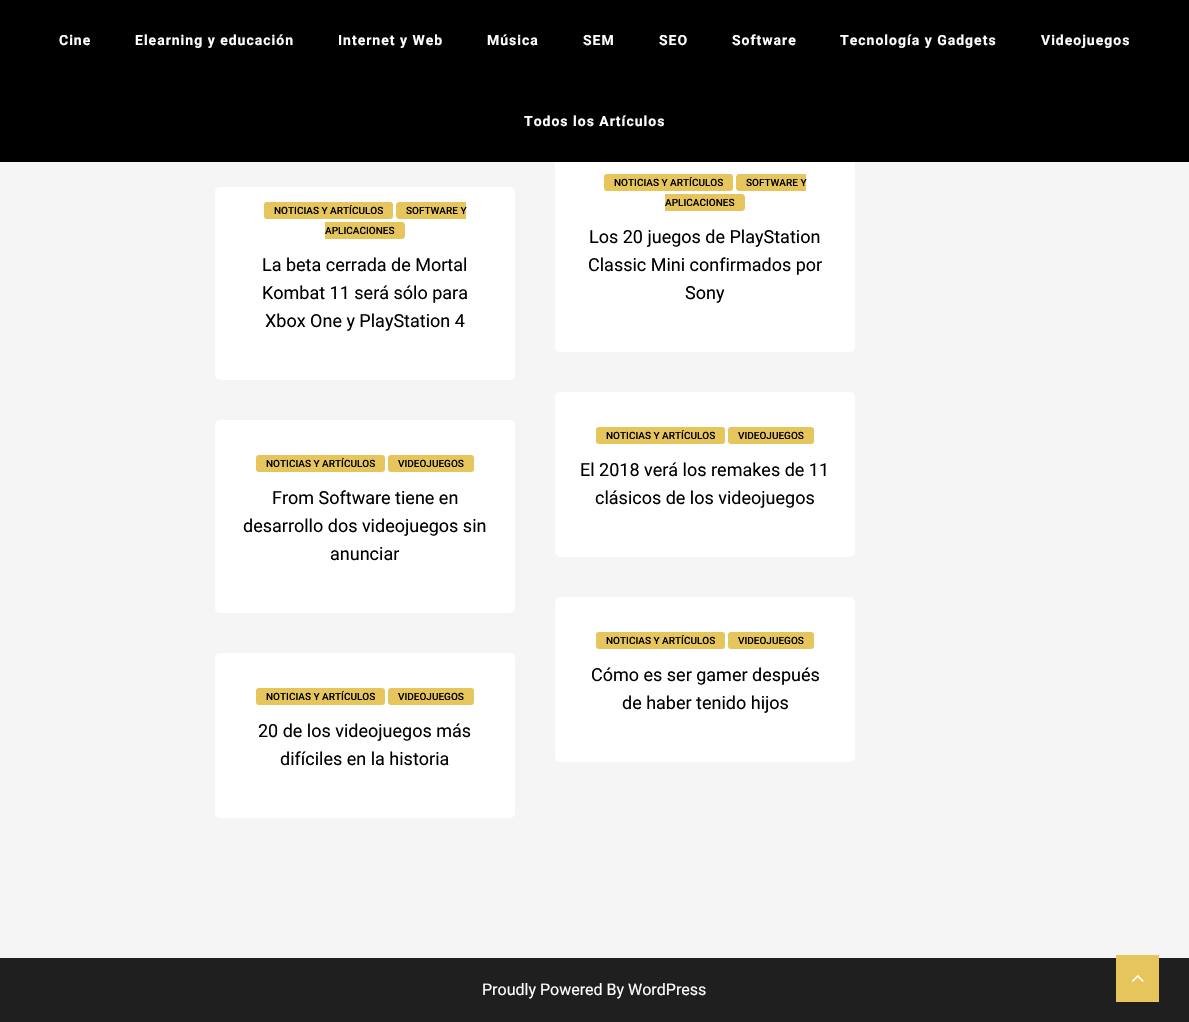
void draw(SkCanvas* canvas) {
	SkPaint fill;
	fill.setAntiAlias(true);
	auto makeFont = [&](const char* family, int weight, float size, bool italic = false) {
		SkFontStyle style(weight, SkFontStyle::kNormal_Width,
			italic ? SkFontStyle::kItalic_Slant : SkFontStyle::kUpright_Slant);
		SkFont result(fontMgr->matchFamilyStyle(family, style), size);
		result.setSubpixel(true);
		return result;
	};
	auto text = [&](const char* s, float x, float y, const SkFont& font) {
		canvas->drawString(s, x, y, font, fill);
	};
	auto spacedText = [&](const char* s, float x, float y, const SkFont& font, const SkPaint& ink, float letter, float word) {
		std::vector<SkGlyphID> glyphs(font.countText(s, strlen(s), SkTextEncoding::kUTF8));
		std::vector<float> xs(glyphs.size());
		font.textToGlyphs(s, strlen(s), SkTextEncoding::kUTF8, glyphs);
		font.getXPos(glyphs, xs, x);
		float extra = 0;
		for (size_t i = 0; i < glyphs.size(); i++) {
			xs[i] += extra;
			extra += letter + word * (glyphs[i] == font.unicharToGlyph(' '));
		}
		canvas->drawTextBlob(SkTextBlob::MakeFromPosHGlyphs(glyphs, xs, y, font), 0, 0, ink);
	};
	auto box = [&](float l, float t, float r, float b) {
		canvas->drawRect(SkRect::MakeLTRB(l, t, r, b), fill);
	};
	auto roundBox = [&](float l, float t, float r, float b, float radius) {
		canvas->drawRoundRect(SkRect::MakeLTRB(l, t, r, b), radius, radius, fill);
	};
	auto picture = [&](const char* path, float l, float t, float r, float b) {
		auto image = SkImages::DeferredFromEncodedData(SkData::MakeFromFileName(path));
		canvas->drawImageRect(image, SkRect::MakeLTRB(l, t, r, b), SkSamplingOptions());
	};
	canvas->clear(0xFF1F1F1F);
	fill.setColor(0xFFF5F5F5);
	box(0, 162, 1189, 958);
	fill.setColor(0xFFFFFFFF);
	roundBox(555, 159, 855, 352, 5);
	fill.setColor(0xFF000000);
	box(0, 0, 1189, 162);
	fill.setColor(0xFFFFFFFF);
	roundBox(215, 187, 515, 380, 5);
	fill.setColor(0xFFE6C55C);
	roundBox(264, 202, 393, 219, 3);
	canvas->drawPath(SkPathBuilder().moveTo(399, 202).lineTo(466, 202).lineTo(466, 219).lineTo(399, 219).cubicTo(397.5f, 219, 396, 217.5f, 396, 216).lineTo(396, 205).cubicTo(396, 203.5f, 397.5f, 202, 399, 202).close().detach(), fill);
	canvas->drawPath(SkPathBuilder().moveTo(325, 222).lineTo(402, 222).cubicTo(403.5f, 222, 405, 223.5f, 405, 225).lineTo(405, 236).cubicTo(405, 237.5f, 403.5f, 239, 402, 239).lineTo(325, 239).close().detach(), fill);
	roundBox(604, 174, 733, 191, 3);
	canvas->drawPath(SkPathBuilder().moveTo(739, 174).lineTo(806, 174).lineTo(806, 191).lineTo(739, 191).cubicTo(737.5f, 191, 736, 189.5f, 736, 188).lineTo(736, 177).cubicTo(736, 175.5f, 737.5f, 174, 739, 174).close().detach(), fill);
	canvas->drawPath(SkPathBuilder().moveTo(665, 194).lineTo(742, 194).cubicTo(743.5f, 194, 745, 195.5f, 745, 197).lineTo(745, 208).cubicTo(745, 209.5f, 743.5f, 211, 742, 211).lineTo(665, 211).close().detach(), fill);
	fill.setColor(0xFFFFFFFF);
	roundBox(215, 420, 515, 613, 5);
	fill.setColor(0xFFE6C55C);
	roundBox(256, 455, 385, 472, 3);
	roundBox(388, 455, 474, 472, 3);
	fill.setColor(0xFFFFFFFF);
	roundBox(555, 392, 855, 557, 5);
	fill.setColor(0xFFE6C55C);
	roundBox(596, 427, 725, 444, 3);
	roundBox(728, 427, 814, 444, 3);
	fill.setColor(0xFFFFFFFF);
	roundBox(555, 597, 855, 762, 5);
	fill.setColor(0xFFE6C55C);
	roundBox(596, 632, 725, 649, 3);
	roundBox(728, 632, 814, 649, 3);
	fill.setColor(0xFFFFFFFF);
	roundBox(215, 653, 515, 818, 5);
	fill.setColor(0xFFE6C55C);
	roundBox(256, 688, 385, 705, 3);
	roundBox(388, 688, 474, 705, 3);
	box(1116, 955, 1159, 1002);
	picture("image0.png", 1132, 975, 1144, 982);
	auto font1 = makeFont("Roboto", 700, 14);
	fill.setColor(0xFFFFFFFF);
	spacedText("Cine", 59, 45, font1, fill, 1, 0);
	spacedText("Elearning y educación", 135, 45, font1, fill, 1, 0);
	spacedText("Internet y Web", 338, 45, font1, fill, 1, 0);
	spacedText("Música", 487, 45, font1, fill, 1, 0);
	spacedText("SEM", 583, 45, font1, fill, 1, 0);
	spacedText("SEO", 659, 45, font1, fill, 1, 0);
	spacedText("Software", 732, 45, font1, fill, 1, 0);
	spacedText("Tecnología y Gadgets", 840, 45, font1, fill, 1, 0);
	spacedText("Videojuegos", 1041, 45, font1, fill, 1, 0);
	spacedText("Todos los Artículos", 524, 126, font1, fill, 1, 0);
	auto font2 = makeFont("Roboto", 500, 10);
	fill.setColor(0xFF000000);
	text("NOTICIAS Y ARTÍCULOS", 274, 214, font2);
	text("SOFTWARE Y", 406, 214, font2);
	text("APLICACIONES", 325, 234, font2);
	auto font3 = makeFont("Roboto", 400, 18);
	text("La beta cerrada de Mortal", 262, 271, font3);
	text("Kombat 11 será sólo para", 262, 299, font3);
	text("Xbox One y PlayStation 4", 265, 327, font3);
	text("NOTICIAS Y ARTÍCULOS", 614, 186, font2);
	text("SOFTWARE Y", 746, 186, font2);
	text("APLICACIONES", 665, 206, font2);
	text("Los 20 juegos de PlayStation", 589, 243, font3);
	text("Classic Mini confirmados por", 588, 271, font3);
	text("Sony", 685, 299, font3);
	text("NOTICIAS Y ARTÍCULOS", 266, 467, font2);
	text("VIDEOJUEGOS", 398, 467, font2);
	text("From Software tiene en", 272, 504, font3);
	text("desarrollo dos videojuegos sin", 243, 532, font3);
	text("anunciar", 330, 560, font3);
	text("NOTICIAS Y ARTÍCULOS", 606, 439, font2);
	text("VIDEOJUEGOS", 738, 439, font2);
	text("El 2018 verá los remakes de 11", 580, 476, font3);
	text("clásicos de los videojuegos", 595, 504, font3);
	text("NOTICIAS Y ARTÍCULOS", 606, 644, font2);
	text("VIDEOJUEGOS", 738, 644, font2);
	text("Cómo es ser gamer después", 591, 681, font3);
	text("de haber tenido hijos", 622, 709, font3);
	text("NOTICIAS Y ARTÍCULOS", 266, 700, font2);
	text("VIDEOJUEGOS", 398, 700, font2);
	text("20 de los videojuegos más", 258, 737, font3);
	text("difíciles en la historia", 280, 765, font3);
	auto font4 = makeFont("Roboto", 400, 16);
	fill.setColor(0xFFFFFFFF);
	text("Proudly Powered By WordPress", 482, 995, font4);
}
